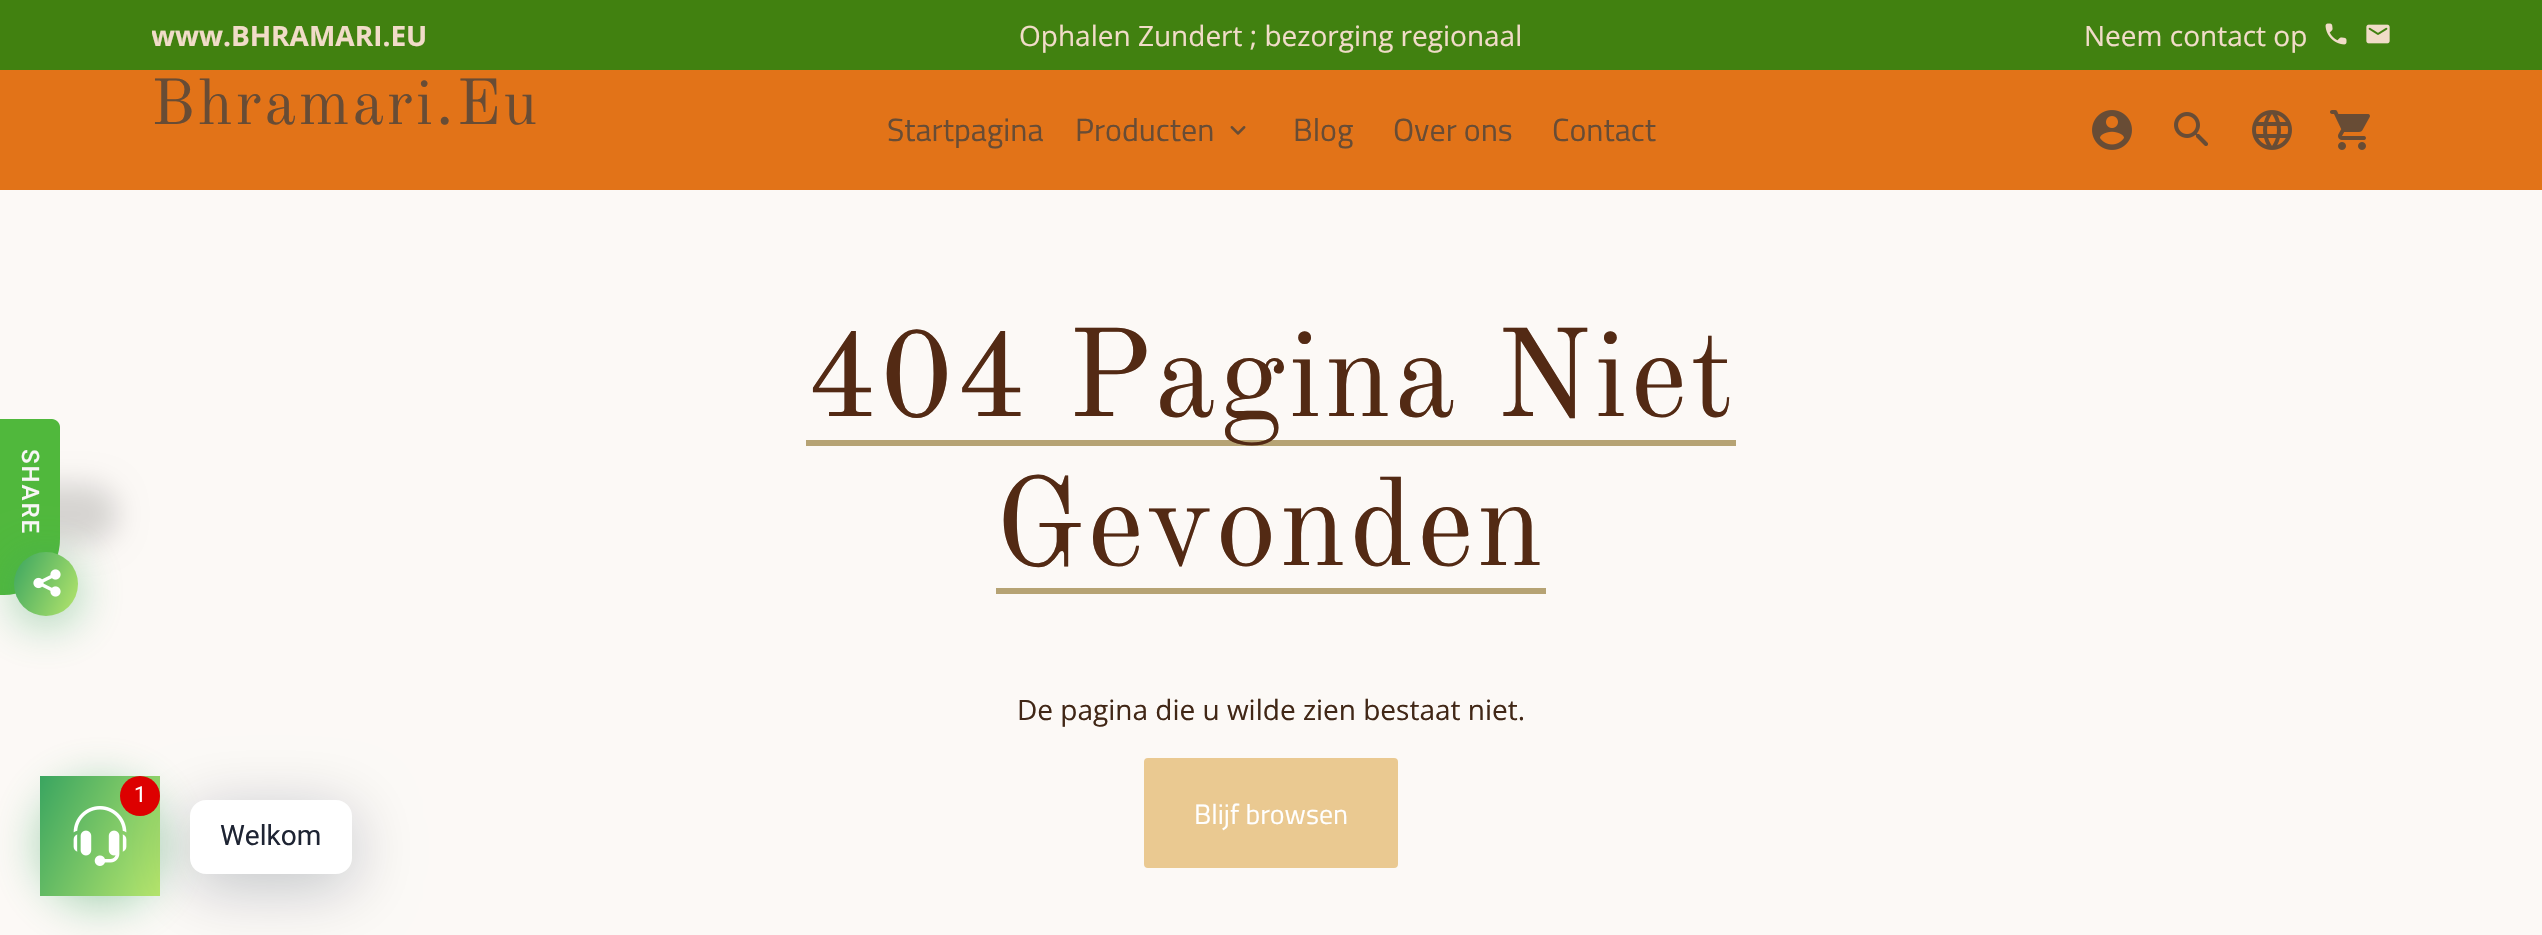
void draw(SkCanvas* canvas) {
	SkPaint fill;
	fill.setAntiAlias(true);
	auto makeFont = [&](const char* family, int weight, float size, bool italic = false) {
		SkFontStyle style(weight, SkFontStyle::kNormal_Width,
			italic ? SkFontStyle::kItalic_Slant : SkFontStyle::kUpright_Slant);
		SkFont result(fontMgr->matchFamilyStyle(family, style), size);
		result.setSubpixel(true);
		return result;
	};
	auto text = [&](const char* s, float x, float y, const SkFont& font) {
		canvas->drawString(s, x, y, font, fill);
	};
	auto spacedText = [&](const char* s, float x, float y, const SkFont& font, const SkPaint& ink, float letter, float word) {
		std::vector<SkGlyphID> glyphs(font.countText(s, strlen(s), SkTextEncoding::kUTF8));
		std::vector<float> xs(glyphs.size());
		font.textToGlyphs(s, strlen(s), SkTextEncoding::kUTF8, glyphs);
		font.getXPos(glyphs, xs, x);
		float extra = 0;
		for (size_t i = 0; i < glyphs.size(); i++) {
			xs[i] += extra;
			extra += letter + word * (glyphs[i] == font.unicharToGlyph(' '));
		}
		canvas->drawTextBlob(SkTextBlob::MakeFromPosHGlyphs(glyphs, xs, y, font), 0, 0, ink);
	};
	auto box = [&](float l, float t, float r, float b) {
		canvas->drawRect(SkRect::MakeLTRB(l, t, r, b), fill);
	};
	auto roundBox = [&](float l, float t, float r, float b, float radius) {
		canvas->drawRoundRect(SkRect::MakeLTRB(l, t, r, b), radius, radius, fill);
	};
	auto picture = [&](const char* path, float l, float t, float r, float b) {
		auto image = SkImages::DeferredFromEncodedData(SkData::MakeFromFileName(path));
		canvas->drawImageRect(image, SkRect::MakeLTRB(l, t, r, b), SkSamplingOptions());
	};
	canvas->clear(0xFFFCF9F6);
	fill.setColor(0xFF418110);
	box(0, 0, 2542, 70);
	picture("image0.png", 2325, 23, 2347, 45);
	picture("image1.png", 2366, 24, 2390, 44);
	fill.setColor(0xFFE27318);
	box(0, 70, 2542, 190);
	picture("image2.png", 1230, 126, 1246, 135);
	picture("image3.png", 2092, 110, 2132, 150);
	picture("image4.png", 2174, 112, 2208, 146);
	picture("image5.png", 2252, 110, 2292, 150);
	picture("image6.png", 2330, 110, 2370, 150);
	fill.setColor(0xFFB6A374);
	box(806, 440, 1736, 446);
	box(996, 588, 1546, 594);
	fill.setColor(0xFFEAC991);
	canvas->drawRoundRect(SkRect::MakeLTRB(1145, 759, 1397, 867), 3, 3, fill);
	fill.setStyle(SkPaint::kStroke_Style);
	fill.setStrokeWidth(2);
	canvas->drawRoundRect(SkRect::MakeLTRB(1145, 759, 1397, 867), 3, 3, fill);
	fill.setStyle(SkPaint::kFill_Style);
	fill.setColor(0x26000000);
	fill.setMaskFilter(SkMaskFilter::MakeBlur(kNormal_SkBlurStyle, 14));
	canvas->drawRoundRect(SkRect::MakeLTRB(-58, 484, 118, 544), 56, 56, fill);
	fill.setMaskFilter(nullptr);
	fill.setColor(0xFF50B83C);
	canvas->drawPath(SkPathBuilder().moveTo(0, 595).lineTo(0, 419).lineTo(52, 419).cubicTo(56, 419, 60, 423, 60, 427).lineTo(60, 539).cubicTo(60, 570, 35, 595, 4, 595).close().detach(), fill);
	fill.setColor(0x803AA560);
	fill.setMaskFilter(SkMaskFilter::MakeBlur(kNormal_SkBlurStyle, 24));
	canvas->drawRoundRect(SkRect::MakeLTRB(14, 560, 78, 624), 32, 32, fill);
	fill.setMaskFilter(nullptr);
	{
		const SkColor colors[] = {0xFF3AA560, 0xFFB7E66C};
		const float stops[] = {0, 1};
		const SkPoint ends[] = {{7.5f, 566}, {85, 602}};
		fill.setShader(SkGradientShader::MakeLinear(ends, colors, stops, 2, SkTileMode::kClamp));
		fill.setAlpha(255);
	}
	canvas->drawCircle(46, 584, 32, fill);
	picture("image7.png", 33, 569, 61, 597);
	fill.setShader(nullptr);
	fill.setColor(0x803AA560);
	fill.setMaskFilter(SkMaskFilter::MakeBlur(kNormal_SkBlurStyle, 24));
	canvas->drawRoundRect(SkRect::MakeLTRB(40, 784, 160, 904), 60, 60, fill);
	fill.setMaskFilter(nullptr);
	{
		const SkColor colors[] = {0xFF3AA560, 0xFFB7E66C};
		const float stops[] = {0, 1};
		const SkPoint ends[] = {{28, 802}, {172, 870}};
		fill.setShader(SkGradientShader::MakeLinear(ends, colors, stops, 2, SkTileMode::kClamp));
		fill.setAlpha(255);
	}
	box(40, 776, 160, 896);
	fill.setShader(nullptr);
	fill.setColor(0x3D00122E);
	fill.setMaskFilter(SkMaskFilter::MakeBlur(kNormal_SkBlurStyle, 32));
	canvas->drawRoundRect(SkRect::MakeLTRB(190, 812, 352, 886), 16, 16, fill);
	fill.setMaskFilter(nullptr);
	picture("image8.png", 73, 806, 127, 866);
	fill.setColor(0xFFDD0000);
	canvas->drawCircle(140, 796, 20, fill);
	fill.setColor(0xFFFFFFFF);
	roundBox(190, 800, 352, 874, 16);
	canvas->save();
	canvas->clipRect(SkRect::MakeLTRB(152, 14, 428, 56));
	auto font1 = makeFont("Open Sans", 700, 28);
	fill.setColor(0xFFF1DCC8);
	text("www.BHRAMARI.EU", 151, 46, font1);
	canvas->restore();
	auto font2 = makeFont("Open Sans", 400, 28);
	text("Ophalen Zundert ; bezorging regionaal", 1019, 46, font2);
	text("Neem contact op", 2084, 46, font2);
	auto font3 = makeFont("Old Standard TT", 400, 64);
	fill.setColor(0xFF684C35);
	spacedText("Bhramari.Eu", 151, 124, font3, fill, 2.75f, 0);
	auto font4 = makeFont("Titillium Web", 400, 32);
	text("Startpagina", 887, 141, font4);
	text("Producten", 1075, 141, font4);
	text("Blog", 1293, 141, font4);
	text("Over ons", 1393, 141, font4);
	text("Contact", 1552, 141, font4);
	auto font5 = makeFont("Old Standard TT", 400, 124);
	fill.setColor(0xFF532A14);
	spacedText("404 Pagina Niet", 806, 416, font5, fill, 2.75f, 0);
	spacedText("Gevonden", 995, 565, font5, fill, 2.75f, 0);
	fill.setColor(0xFF412716);
	text("De pagina die u wilde zien bestaat niet.", 1017, 720, font2);
	auto font6 = makeFont("Titillium Web", 400, 28);
	fill.setColor(0xFFFFFFFF);
	text("Blijf browsen", 1194, 824, font6);
	auto font7 = makeFont("Roboto", 500, 24);
	fill.setColor(0xFFF8F6F6);
	canvas->save();
	canvas->rotate(90, 22, 449);
	spacedText("SHARE", 22, 449, font7, fill, 2, 0);
	canvas->restore();
	auto font8 = makeFont("Roboto", 400, 22);
	fill.setColor(0xFFFFFFFF);
	text("1", 134, 802, font8);
	auto font9 = makeFont("Roboto", 400, 28);
	fill.setColor(0xFF1E2433);
	text("Welkom", 220, 845, font9);
}
